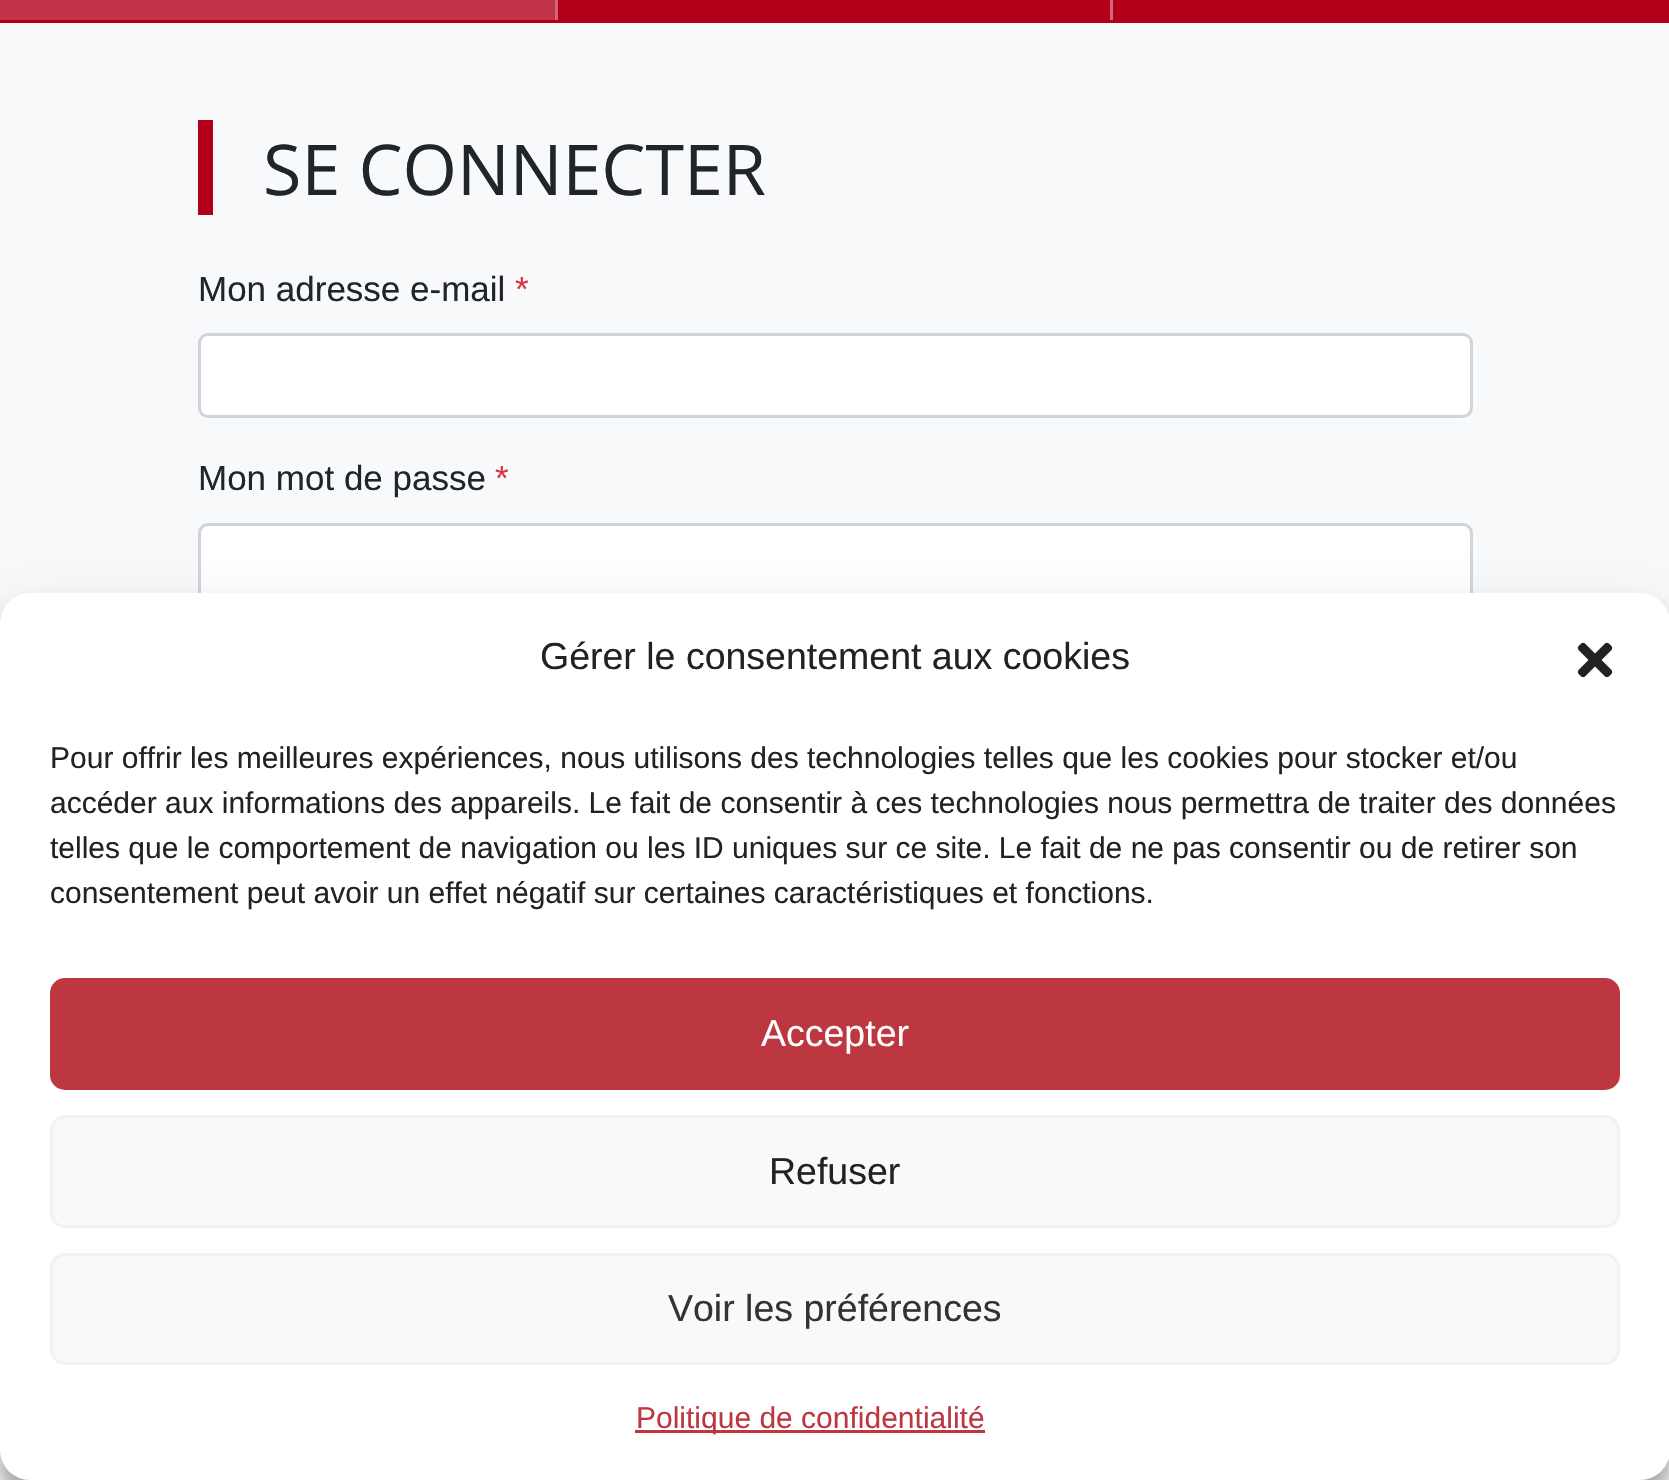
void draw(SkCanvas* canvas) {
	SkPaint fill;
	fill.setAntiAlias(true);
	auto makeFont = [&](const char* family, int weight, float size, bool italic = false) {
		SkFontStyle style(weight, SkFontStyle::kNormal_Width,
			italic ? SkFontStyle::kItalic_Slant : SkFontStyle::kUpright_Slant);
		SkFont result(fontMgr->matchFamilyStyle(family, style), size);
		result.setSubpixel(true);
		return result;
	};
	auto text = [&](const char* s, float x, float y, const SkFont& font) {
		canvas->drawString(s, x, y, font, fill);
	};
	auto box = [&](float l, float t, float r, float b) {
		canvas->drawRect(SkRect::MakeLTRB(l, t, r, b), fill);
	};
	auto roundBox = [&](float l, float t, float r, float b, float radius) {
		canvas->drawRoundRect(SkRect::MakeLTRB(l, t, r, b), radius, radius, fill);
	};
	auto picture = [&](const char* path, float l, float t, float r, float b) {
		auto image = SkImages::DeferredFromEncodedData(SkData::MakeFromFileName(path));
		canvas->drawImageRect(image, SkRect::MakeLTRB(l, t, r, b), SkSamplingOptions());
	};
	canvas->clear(0xFFFFFFFF);
	fill.setColor(0xFFB2001A);
	box(0, 20, 1669, 23);
	box(558, 0, 1669, 20);
	fill.setColor(0xFFD16676);
	box(555, 0, 558, 20);
	fill.setColor(0xFFC13348);
	box(0, 0, 555, 20);
	fill.setColor(0xFFD16676);
	box(1110, 0, 1113, 20);
	fill.setColor(0xFFF8F9FA);
	box(0, 23, 1669, 623);
	fill.setColor(0xFFB2001A);
	box(198, 120, 213, 215);
	fill.setColor(0xFFFFFFFF);
	roundBox(200, 335, 1470, 415, 6);
	fill.setStyle(SkPaint::kStroke_Style);
	fill.setStrokeWidth(3);
	fill.setColor(0xFFCED4DA);
	canvas->drawRoundRect(SkRect::MakeLTRB(199.5f, 334.5f, 1471.5f, 416.5f), 8.5f, 8.5f, fill);
	fill.setStyle(SkPaint::kFill_Style);
	fill.setColor(0xFFFFFFFF);
	roundBox(200, 525, 1470, 603, 6);
	fill.setStyle(SkPaint::kStroke_Style);
	fill.setColor(0xFFCED4DA);
	canvas->drawRoundRect(SkRect::MakeLTRB(199.5f, 524.5f, 1471.5f, 603.5f), 8.5f, 8.5f, fill);
	fill.setStyle(SkPaint::kFill_Style);
	fill.setColor(0x3B000000);
	fill.setMaskFilter(SkMaskFilter::MakeBlur(kNormal_SkBlurStyle, 7.5f));
	canvas->drawRoundRect(SkRect::MakeLTRB(0, 608, 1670, 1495), 30, 30, fill);
	fill.setMaskFilter(nullptr);
	fill.setColor(0x30000000);
	fill.setMaskFilter(SkMaskFilter::MakeBlur(kNormal_SkBlurStyle, 25));
	canvas->drawRoundRect(SkRect::MakeLTRB(0, 618, 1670, 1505), 30, 30, fill);
	fill.setMaskFilter(nullptr);
	fill.setColor(0xFFFFFFFF);
	roundBox(0, 593, 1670, 1480, 30);
	picture("image0.png", 1577, 642, 1613, 678);
	fill.setColor(0xFFBD3741);
	canvas->drawRoundRect(SkRect::MakeLTRB(51.5f, 979.5f, 1618.5f, 1088.5f), 13.5f, 13.5f, fill);
	fill.setStyle(SkPaint::kStroke_Style);
	canvas->drawRoundRect(SkRect::MakeLTRB(51.5f, 979.5f, 1618.5f, 1088.5f), 13.5f, 13.5f, fill);
	fill.setStyle(SkPaint::kFill_Style);
	fill.setColor(0xFFF9F9F9);
	canvas->drawRoundRect(SkRect::MakeLTRB(51.5f, 1116.5f, 1618.5f, 1226.5f), 13.5f, 13.5f, fill);
	fill.setStyle(SkPaint::kStroke_Style);
	fill.setColor(0xFFF2F2F2);
	canvas->drawRoundRect(SkRect::MakeLTRB(51.5f, 1116.5f, 1618.5f, 1226.5f), 13.5f, 13.5f, fill);
	fill.setStyle(SkPaint::kFill_Style);
	fill.setColor(0xFFF9F9F9);
	canvas->drawRoundRect(SkRect::MakeLTRB(51.5f, 1254.5f, 1618.5f, 1363.5f), 13.5f, 13.5f, fill);
	fill.setStyle(SkPaint::kStroke_Style);
	fill.setColor(0xFFF2F2F2);
	canvas->drawRoundRect(SkRect::MakeLTRB(51.5f, 1254.5f, 1618.5f, 1363.5f), 13.5f, 13.5f, fill);
	fill.setStyle(SkPaint::kFill_Style);
	fill.setColor(0xFFBD3741);
	box(635, 1430, 985, 1433);
	auto font1 = makeFont("Open Sans", 400, 70);
	fill.setColor(0xFF212529);
	text("SE CONNECTER", 263, 195, font1);
	auto font2 = makeFont("Liberation Sans", 400, 35);
	text("Mon adresse e-mail", 198, 301, font2);
	fill.setColor(0xFFDC3545);
	text("*", 515, 301, font2);
	fill.setColor(0xFF212529);
	text("Mon mot de passe", 198, 490, font2);
	fill.setColor(0xFFDC3545);
	text("*", 495, 490, font2);
	auto font3 = makeFont("Liberation Sans", 400, 37.5f);
	fill.setColor(0xFF222222);
	text("Gérer le consentement aux cookies", 540, 669, font3);
	auto font4 = makeFont("Liberation Sans", 400, 30);
	text("Pour offrir les meilleures expériences, nous utilisons des technologies telles que les cookies pour stocker et/ou", 50, 768, font4);
	text("accéder aux informations des appareils. Le fait de consentir à ces technologies nous permettra de traiter des données", 50, 813, font4);
	text("telles que le comportement de navigation ou les ID uniques sur ce site. Le fait de ne pas consentir ou de retirer son", 50, 858, font4);
	text("consentement peut avoir un effet négatif sur certaines caractéristiques et fonctions.", 50, 903, font4);
	fill.setColor(0xFFFFFFFF);
	text("Accepter", 761, 1046, font3);
	fill.setColor(0xFF222222);
	text("Refuser", 769, 1184, font3);
	fill.setColor(0xFF333333);
	text("Voir les préférences", 668, 1321, font3);
	fill.setColor(0xFFBD3741);
	text("Politique de confidentialité", 636, 1428, font4);
}
